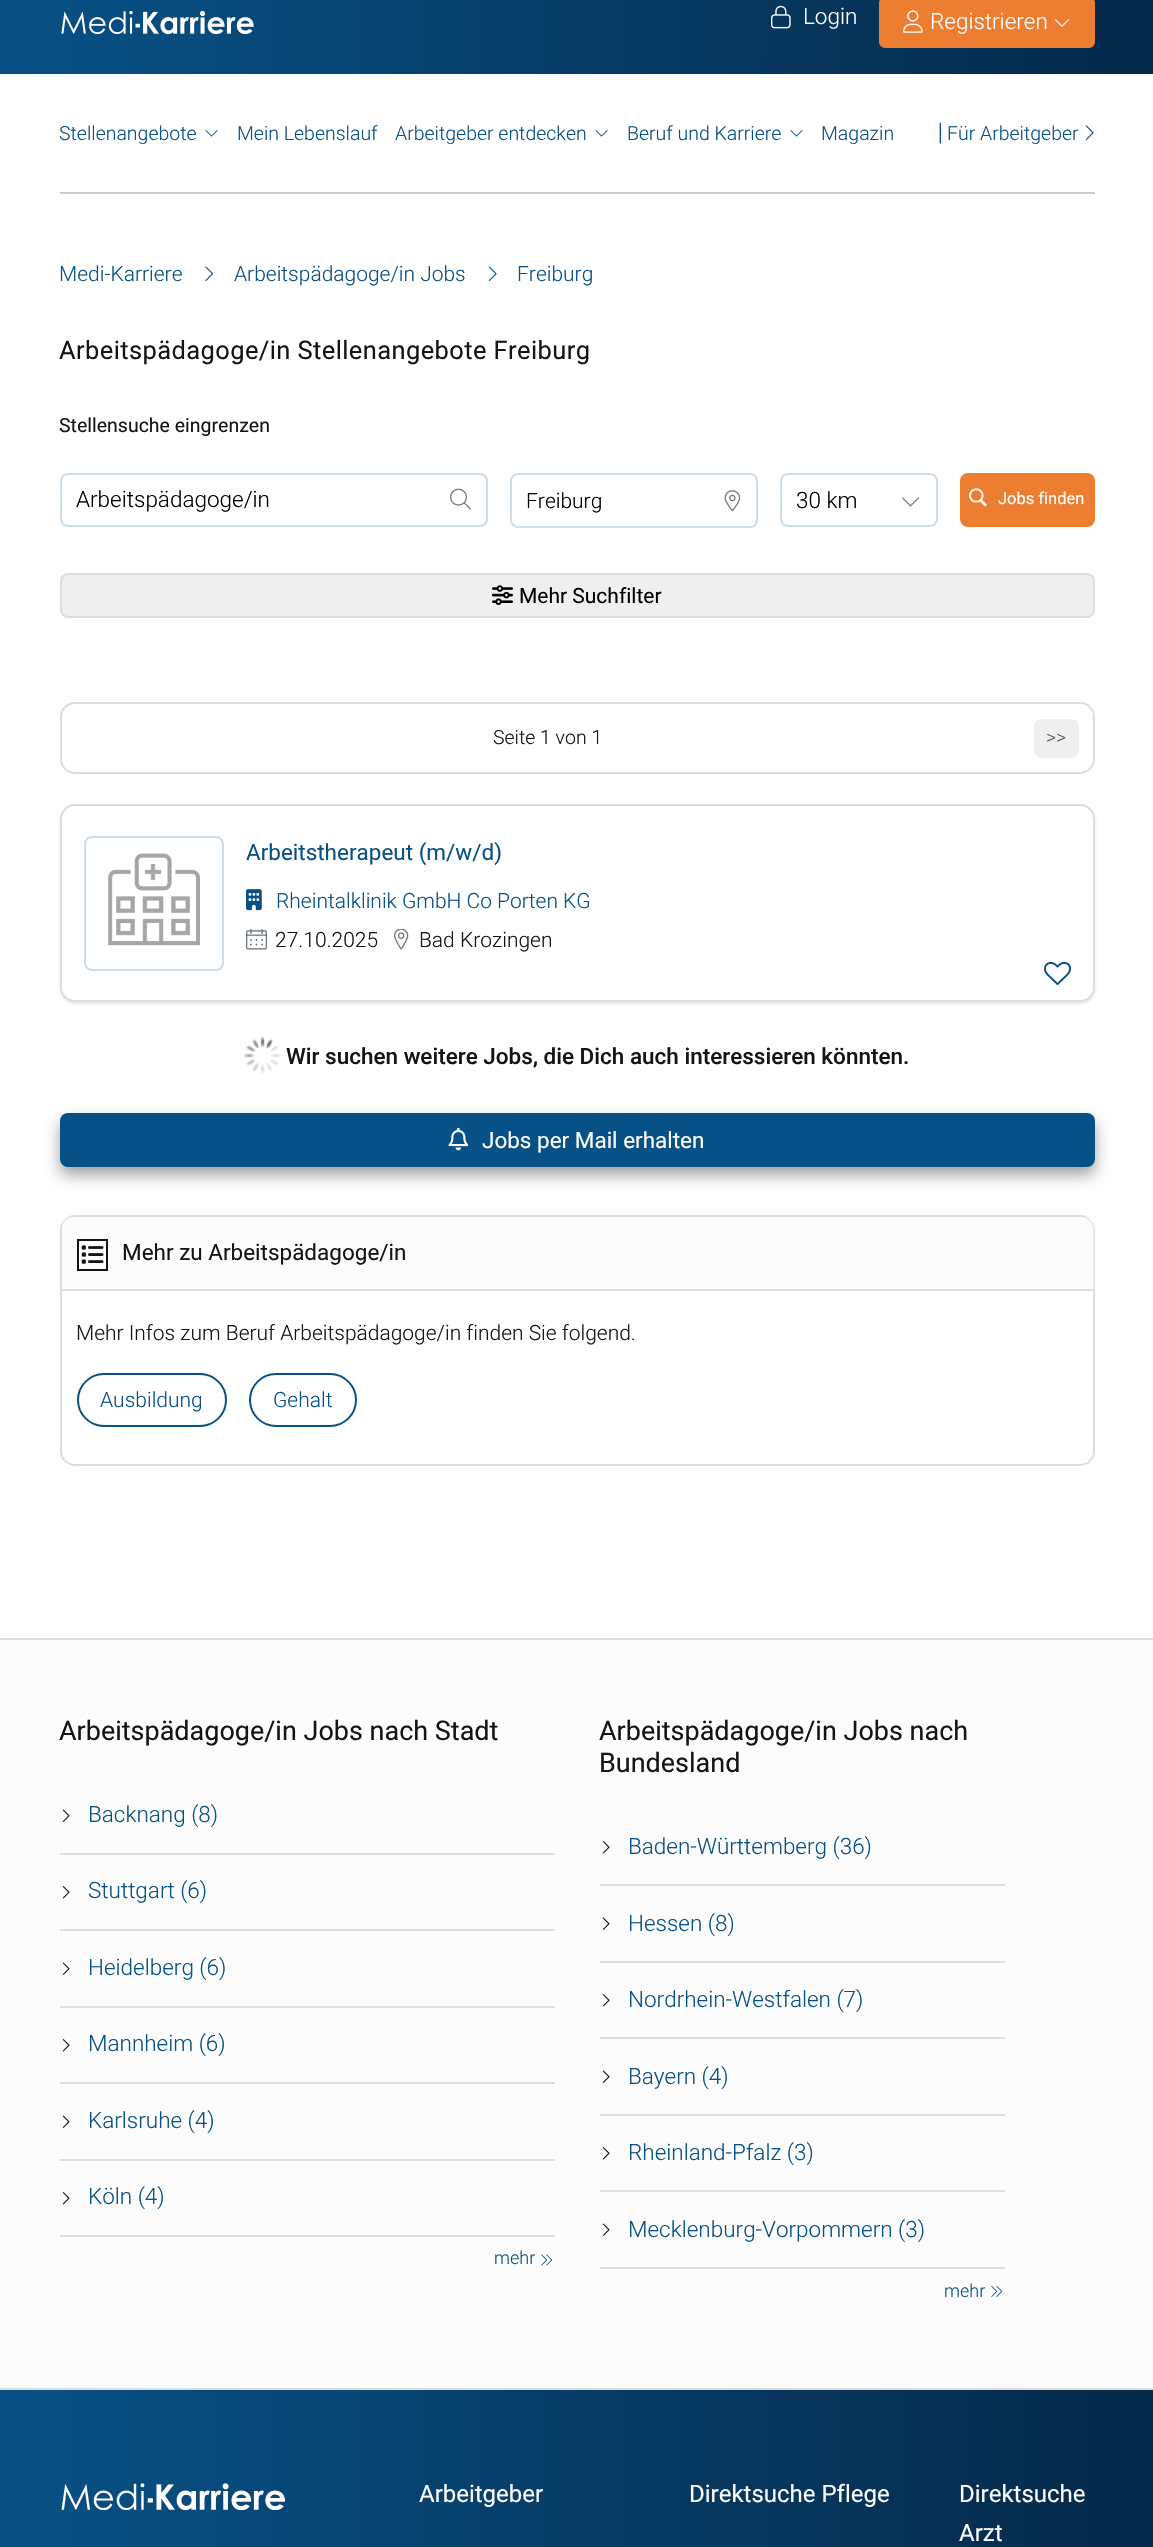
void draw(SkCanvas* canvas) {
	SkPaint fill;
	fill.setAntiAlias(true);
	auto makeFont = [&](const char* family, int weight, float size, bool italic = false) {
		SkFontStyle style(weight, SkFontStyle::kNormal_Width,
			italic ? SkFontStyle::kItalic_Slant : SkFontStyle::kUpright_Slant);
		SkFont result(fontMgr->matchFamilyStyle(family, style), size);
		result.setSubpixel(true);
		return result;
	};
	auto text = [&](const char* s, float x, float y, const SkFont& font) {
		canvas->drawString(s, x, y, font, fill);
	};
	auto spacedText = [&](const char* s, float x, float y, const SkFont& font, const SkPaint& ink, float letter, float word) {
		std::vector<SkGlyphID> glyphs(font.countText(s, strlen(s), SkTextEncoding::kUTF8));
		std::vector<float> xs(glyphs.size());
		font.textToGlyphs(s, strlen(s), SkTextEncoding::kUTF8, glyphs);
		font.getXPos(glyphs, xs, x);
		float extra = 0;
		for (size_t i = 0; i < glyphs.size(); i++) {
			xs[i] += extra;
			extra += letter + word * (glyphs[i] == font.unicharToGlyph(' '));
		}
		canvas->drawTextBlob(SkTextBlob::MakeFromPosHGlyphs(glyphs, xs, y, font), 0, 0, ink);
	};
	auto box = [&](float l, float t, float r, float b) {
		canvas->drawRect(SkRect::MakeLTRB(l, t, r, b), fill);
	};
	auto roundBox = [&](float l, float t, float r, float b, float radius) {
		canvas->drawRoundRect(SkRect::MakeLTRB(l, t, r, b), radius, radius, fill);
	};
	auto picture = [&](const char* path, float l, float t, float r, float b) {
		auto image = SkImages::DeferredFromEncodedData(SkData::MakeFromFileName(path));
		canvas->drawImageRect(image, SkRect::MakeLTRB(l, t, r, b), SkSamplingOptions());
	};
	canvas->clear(0xFFFFFFFF);
	{
		const SkColor colors[] = {0xFF052949, 0xFF085186};
		const float stops[] = {0, 1};
		const SkPoint ends[] = {{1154, 23}, {0, 22}};
		fill.setShader(SkGradientShader::MakeLinear(ends, colors, stops, 2, SkTileMode::kClamp));
		fill.setAlpha(255);
	}
	box(0, 0, 1153, 74);
	picture("image0.png", 61, 10, 254, 35);
	picture("image1.png", 771, 5, 791, 29);
	fill.setShader(nullptr);
	fill.setColor(0xFFED7D31);
	canvas->drawRoundRect(SkRect::MakeLTRB(880, -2, 1094, 47), 5, 5, fill);
	fill.setStyle(SkPaint::kStroke_Style);
	fill.setStrokeWidth(2);
	canvas->drawRoundRect(SkRect::MakeLTRB(880, -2, 1094, 47), 5, 5, fill);
	picture("image2.png", 903, 10, 923, 33);
	picture("image3.png", 1054, 19, 1070, 27);
	fill.setStyle(SkPaint::kFill_Style);
	fill.setColor(0xFFCCCCCC);
	box(60, 192, 1095, 194);
	picture("image4.png", 205, 130, 218, 137);
	picture("image4.png", 595, 130, 608, 137);
	picture("image4.png", 790, 130, 803, 137);
	picture("image5.png", 939, 122, 941, 144);
	picture("image6.png", 1085, 125, 1094, 140);
	picture("image7.png", 205, 266, 214, 281);
	picture("image6.png", 488, 266, 497, 281);
	fill.setStyle(SkPaint::kStroke_Style);
	fill.setColor(0xFFCDDCE6);
	canvas->drawRoundRect(SkRect::MakeLTRB(61, 474, 487, 526), 7, 7, fill);
	picture("image8.png", 450, 488, 471, 510);
	canvas->drawRoundRect(SkRect::MakeLTRB(511, 474, 757, 527), 7, 7, fill);
	picture("image9.png", 724, 490, 741, 512);
	canvas->drawRoundRect(SkRect::MakeLTRB(781, 474, 937, 526), 7, 7, fill);
	picture("image10.png", 902, 497, 919, 507);
	fill.setStyle(SkPaint::kFill_Style);
	fill.setColor(0xFFED7D31);
	roundBox(960, 473, 1095, 527, 8);
	picture("image11.png", 969, 488, 987, 507);
	fill.setColor(0xFFEFEFEF);
	canvas->drawRoundRect(SkRect::MakeLTRB(61, 574, 1094, 617), 7, 7, fill);
	fill.setStyle(SkPaint::kStroke_Style);
	fill.setColor(0xFFDDDDDD);
	canvas->drawRoundRect(SkRect::MakeLTRB(61, 574, 1094, 617), 7, 7, fill);
	picture("image12.png", 492, 585, 513, 605);
	canvas->drawRoundRect(SkRect::MakeLTRB(61, 703, 1094, 773), 14, 14, fill);
	fill.setStyle(SkPaint::kFill_Style);
	fill.setColor(0xFFEFEFEF);
	roundBox(1034, 719, 1079, 758, 8);
	fill.setColor(0x1A000000);
	fill.setMaskFilter(SkMaskFilter::MakeBlur(kNormal_SkBlurStyle, 1.5f));
	canvas->drawRoundRect(SkRect::MakeLTRB(60, 806, 1095, 1004), 15, 15, fill);
	fill.setMaskFilter(nullptr);
	fill.setColor(0xFFFFFFFF);
	canvas->drawRoundRect(SkRect::MakeLTRB(61, 805, 1094, 1001), 14, 14, fill);
	fill.setStyle(SkPaint::kStroke_Style);
	fill.setColor(0xFFDDDDDD);
	canvas->drawRoundRect(SkRect::MakeLTRB(61, 805, 1094, 1001), 14, 14, fill);
	fill.setColor(0xFFCDDCE6);
	canvas->drawRoundRect(SkRect::MakeLTRB(85, 837, 223, 970), 7, 7, fill);
	picture("image13.png", 107, 853, 200, 946);
	picture("image14.png", 246, 889, 262, 911);
	picture("image15.png", 246, 929, 267, 950);
	picture("image16.png", 393, 929, 409, 950);
	picture("image17.png", 1044, 961, 1071, 985);
	picture("image18.png", 244, 1037, 281, 1074);
	fill.setStyle(SkPaint::kFill_Style);
	fill.setColor(0x5E000000);
	fill.setMaskFilter(SkMaskFilter::MakeBlur(kNormal_SkBlurStyle, 7.5f));
	canvas->drawRoundRect(SkRect::MakeLTRB(60, 1121, 1095, 1175), 8, 8, fill);
	fill.setMaskFilter(nullptr);
	fill.setColor(0xFF085186);
	roundBox(60, 1113, 1095, 1167, 8);
	picture("image19.png", 448, 1127, 469, 1151);
	fill.setStyle(SkPaint::kStroke_Style);
	fill.setColor(0xFFDDDDDD);
	canvas->drawRoundRect(SkRect::MakeLTRB(61, 1216, 1094, 1465), 14, 14, fill);
	fill.setStyle(SkPaint::kFill_Style);
	fill.setColor(0x7DF8F8F8);
	box(62, 1217, 1094, 1289);
	fill.setColor(0xFFDDDDDD);
	box(62, 1289, 1094, 1291);
	fill.setStyle(SkPaint::kStroke_Style);
	fill.setColor(0xFF141412);
	canvas->drawRect(SkRect::MakeLTRB(78, 1240, 107, 1270), fill);
	picture("image20.png", 81, 1245, 104, 1264);
	fill.setColor(0xFF085186);
	canvas->drawRoundRect(SkRect::MakeLTRB(78, 1374, 226, 1426), 26, 26, fill);
	canvas->drawRoundRect(SkRect::MakeLTRB(250, 1374, 356, 1426), 26, 26, fill);
	fill.setStyle(SkPaint::kFill_Style);
	fill.setColor(0xFFFCFCFC);
	box(0, 1640, 1153, 2388);
	fill.setColor(0xFFDDDDDD);
	box(0, 1638, 1153, 1640);
	box(0, 2388, 1153, 2390);
	fill.setColor(0xFFDEDEDE);
	box(60, 1853, 555, 1855);
	picture("image21.png", 62, 1809, 70, 1822);
	box(60, 1929, 555, 1931);
	picture("image22.png", 62, 1886, 70, 1899);
	box(60, 2006, 555, 2008);
	picture("image21.png", 62, 1962, 70, 1975);
	box(60, 2082, 555, 2084);
	picture("image22.png", 62, 2039, 70, 2052);
	box(60, 2159, 555, 2161);
	picture("image21.png", 62, 2115, 70, 2128);
	box(60, 2235, 555, 2237);
	picture("image22.png", 62, 2192, 70, 2205);
	picture("image23.png", 541, 2254, 553, 2266);
	box(600, 1884, 1005, 1886);
	picture("image22.png", 602, 1841, 610, 1854);
	box(600, 1961, 1005, 1963);
	picture("image21.png", 602, 1917, 610, 1930);
	box(600, 2037, 1005, 2039);
	picture("image22.png", 602, 1994, 610, 2007);
	box(600, 2114, 1005, 2116);
	picture("image21.png", 602, 2070, 610, 2083);
	box(600, 2190, 1005, 2192);
	picture("image22.png", 602, 2147, 610, 2160);
	box(600, 2267, 1005, 2269);
	picture("image21.png", 602, 2223, 610, 2236);
	picture("image24.png", 991, 2286, 1003, 2297);
	{
		const SkColor colors[] = {0xFF052949, 0xFF085186};
		const float stops[] = {0, 1};
		const SkPoint ends[] = {{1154, 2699}, {0, 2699}};
		fill.setShader(SkGradientShader::MakeLinear(ends, colors, stops, 2, SkTileMode::kClamp));
		fill.setAlpha(255);
	}
	box(0, 2390, 1153, 2547);
	picture("image25.png", 61, 2483, 285, 2510);
	auto font1 = makeFont("Roboto", 300, 22.5f);
	fill.setShader(nullptr);
	fill.setColor(0xFFFFFFFF);
	text("Login", 803, 24, font1);
	text("Registrieren", 930, 29, font1);
	auto font2 = makeFont("Roboto", 300, 19.5f);
	fill.setColor(0xFF085186);
	text("Stellenangebote", 59, 140, font2);
	text("Mein Lebenslauf", 237, 140, font2);
	text("Arbeitgeber entdecken", 395, 140, font2);
	text("Beruf und Karriere", 627, 140, font2);
	text("Magazin", 821, 140, font2);
	text("Für Arbeitgeber", 947, 140, font2);
	auto font3 = makeFont("Roboto", 300, 21);
	text("Medi-Karriere", 59, 281, font3);
	text("Arbeitspädagoge/in Jobs", 234, 281, font3);
	text("Freiburg", 517, 281, font3);
	auto font4 = makeFont("Roboto", 400, 25.5f);
	fill.setColor(0xFF141412);
	spacedText("Arbeitspädagoge/in Stellenangebote Freiburg", 59, 359, font4, fill, 0.4f, 0);
	auto font5 = makeFont("Roboto", 400, 19.5f);
	text("Stellensuche eingrenzen", 59, 432, font5);
	fill.setColor(0xFF000000);
	text("Arbeitspädagoge/in", 76, 507, font1);
	text("Freiburg", 526, 508, font3);
	text("30 km", 796, 508, font1);
	auto font6 = makeFont("Roboto", 400, 16.5f);
	fill.setColor(0xFFFFFFFF);
	text("Jobs finden", 998, 504, font6);
	auto font7 = makeFont("Roboto", 400, 21);
	fill.setColor(0xFF000000);
	text("Mehr Suchfilter", 519, 603, font7);
	fill.setColor(0xFF141412);
	text("Seite 1 von 1", 493, 744, font2);
	fill.setColor(0xFF595959);
	text(">>", 1046, 744, font2);
	auto font8 = makeFont("Roboto", 400, 22.5f);
	fill.setColor(0xFF085186);
	text("Arbeitstherapeut (m/w/d)", 246, 860, font8);
	text("Rheintalklinik GmbH Co Porten KG", 276, 908, font3);
	fill.setColor(0xFF141412);
	text("27.10.2025", 275, 947, font3);
	text("Bad Krozingen", 419, 947, font3);
	auto font9 = makeFont("Roboto", 500, 22.5f);
	text("Wir suchen weitere Jobs, die Dich auch interessieren könnten.", 286, 1064, font9);
	fill.setColor(0xFFFFFFFF);
	text("Jobs per Mail erhalten", 482, 1148, font8);
	fill.setColor(0xFF141412);
	text("Mehr zu Arbeitspädagoge/in", 122, 1260, font8);
	text("Mehr Infos zum Beruf Arbeitspädagoge/in finden Sie folgend.", 76, 1340, font3);
	fill.setColor(0xFF085186);
	text("Ausbildung", 100, 1407, font3);
	text("Gehalt", 273, 1407, font3);
	auto font10 = makeFont("Roboto", 400, 27);
	fill.setColor(0xFF141412);
	text("Arbeitspädagoge/in Jobs nach Stadt", 59, 1740, font10);
	fill.setColor(0xFF085186);
	text("Backnang (8)", 88, 1822, font1);
	text("Stuttgart (6)", 88, 1898, font1);
	text("Heidelberg (6)", 88, 1975, font1);
	text("Mannheim (6)", 88, 2051, font1);
	text("Karlsruhe (4)", 88, 2128, font1);
	text("Köln (4)", 88, 2204, font1);
	auto font11 = makeFont("Roboto", 300, 18);
	text("mehr", 494, 2264, font11);
	fill.setColor(0xFF141412);
	text("Arbeitspädagoge/in Jobs nach", 599, 1740, font10);
	text("Bundesland", 599, 1772, font10);
	fill.setColor(0xFF085186);
	text("Baden-Württemberg (36)", 628, 1854, font1);
	text("Hessen (8)", 628, 1931, font1);
	text("Nordrhein-Westfalen (7)", 628, 2007, font1);
	text("Bayern (4)", 628, 2084, font1);
	text("Rheinland-Pfalz (3)", 628, 2160, font1);
	text("Mecklenburg-Vorpommern (3)", 628, 2237, font1);
	text("mehr", 944, 2297, font11);
	auto font12 = makeFont("Roboto", 400, 24);
	fill.setColor(0xFFFFFFFF);
	text("Arbeitgeber", 419, 2502, font12);
	text("Direktsuche Pflege", 689, 2502, font12);
	text("Direktsuche", 959, 2502, font12);
	text("Arzt", 959, 2541, font12);
}
